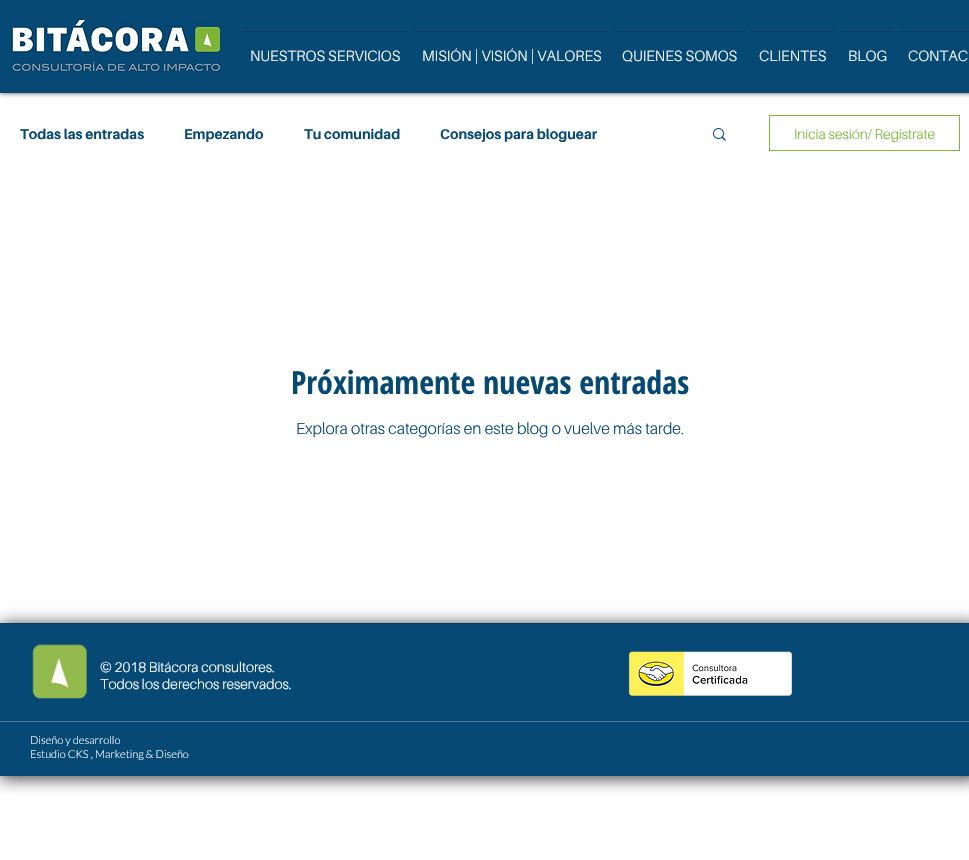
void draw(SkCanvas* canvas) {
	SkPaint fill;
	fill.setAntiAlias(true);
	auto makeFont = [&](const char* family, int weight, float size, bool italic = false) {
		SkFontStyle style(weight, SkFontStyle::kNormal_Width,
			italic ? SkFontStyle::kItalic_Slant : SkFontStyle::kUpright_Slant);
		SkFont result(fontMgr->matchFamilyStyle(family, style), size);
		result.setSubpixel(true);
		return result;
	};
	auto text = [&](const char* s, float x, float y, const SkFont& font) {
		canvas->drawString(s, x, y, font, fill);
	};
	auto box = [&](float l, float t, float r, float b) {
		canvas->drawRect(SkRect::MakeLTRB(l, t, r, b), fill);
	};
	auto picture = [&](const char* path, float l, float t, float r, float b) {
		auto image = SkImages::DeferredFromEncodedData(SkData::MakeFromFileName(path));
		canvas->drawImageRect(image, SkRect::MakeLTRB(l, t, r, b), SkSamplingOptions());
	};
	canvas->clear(0xFFFFFFFF);
	fill.setColor(0xB3000000);
	fill.setMaskFilter(SkMaskFilter::MakeBlur(kNormal_SkBlurStyle, 2.5f));
	canvas->drawRect(SkRect::MakeLTRB(0, 0, 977, 93), fill);
	fill.setMaskFilter(nullptr);
	fill.setColor(0xFF064975);
	box(0, 0, 969, 93);
	picture("image0.png", 11, 18, 221, 73);
	fill.setColor(0xFF0C3C60);
	box(242, 31, 408, 32);
	box(414, 31, 608, 32);
	box(614, 31, 745, 32);
	box(751, 31, 834, 32);
	box(840, 31, 894, 32);
	box(900, 31, 969, 32);
	picture("image1.png", 713, 128, 726, 141);
	fill.setStyle(SkPaint::kStroke_Style);
	fill.setStrokeWidth(1);
	fill.setColor(0xFF7FB539);
	canvas->drawRect(SkRect::MakeLTRB(769.5f, 115.5f, 959.5f, 150.5f), fill);
	fill.setStyle(SkPaint::kFill_Style);
	fill.setColor(0xCC000000);
	fill.setMaskFilter(SkMaskFilter::MakeBlur(kNormal_SkBlurStyle, 8));
	canvas->drawRect(SkRect::MakeLTRB(0, 625, 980, 778), fill);
	fill.setMaskFilter(nullptr);
	fill.setColor(0xFF064975);
	box(0, 624, 969, 776);
	fill.setColor(0xFF0C3C60);
	box(0, 623, 969, 624);
	picture("image2.png", 32, 644, 87, 699);
	picture("image3.png", 629, 651, 792, 698);
	fill.setColor(0xFF4C7C9C);
	box(0, 721, 969, 722);
	auto font1 = makeFont("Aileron", 300, 15);
	fill.setColor(0xFFFFFFFF);
	text("NUESTROS SERVICIOS", 250, 61, font1);
	text("MISIÓN | VISIÓN | VALORES", 422, 61, font1);
	text("QUIENES SOMOS", 622, 61, font1);
	text("CLIENTES", 759, 61, font1);
	text("BLOG", 848, 61, font1);
	text("CONTAC", 908, 61, font1);
	auto font2 = makeFont("Aileron", 700, 14);
	fill.setColor(0xFF064975);
	text("Todas las entradas", 20, 139, font2);
	text("Empezando", 184, 139, font2);
	text("Tu comunidad", 304, 139, font2);
	text("Consejos para bloguear", 440, 139, font2);
	auto font3 = makeFont("Aileron", 300, 14);
	fill.setColor(0xFF7FB539);
	text("Inicia sesión/ Regístrate", 794, 139, font3);
	auto font4 = makeFont("Open Sans Condensed", 700, 32);
	fill.setColor(0xFF064975);
	text("Próximamente nuevas entradas", 291, 394, font4);
	auto font5 = makeFont("Aileron", 300, 16);
	text("Explora otras categorías en este blog o vuelve más tarde.", 296, 434, font5);
	fill.setColor(0xFFFFFFFF);
	text("© 2018 Bitácora consultores.", 100, 672, font3);
	text("Todos los derechos reservados.", 100, 689, font3);
	auto font6 = makeFont("Lato", 300, 11);
	text("Diseño y desarrollo", 30, 744, font6);
	text("Estudio CKS , Marketing & Diseño", 30, 758, font6);
}
